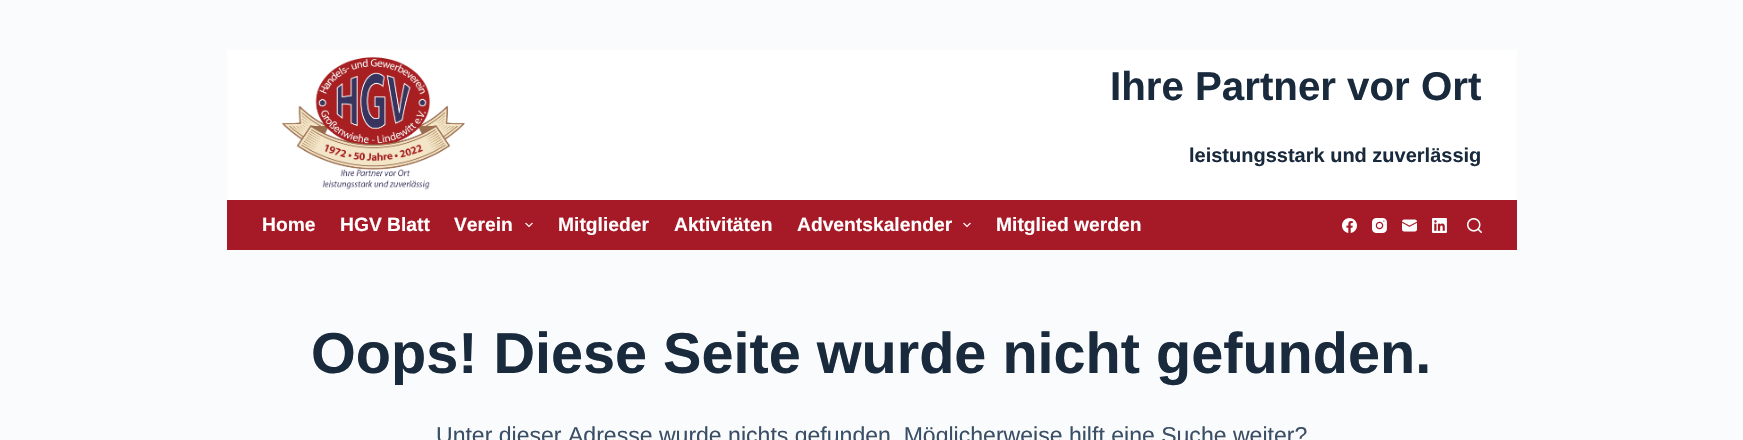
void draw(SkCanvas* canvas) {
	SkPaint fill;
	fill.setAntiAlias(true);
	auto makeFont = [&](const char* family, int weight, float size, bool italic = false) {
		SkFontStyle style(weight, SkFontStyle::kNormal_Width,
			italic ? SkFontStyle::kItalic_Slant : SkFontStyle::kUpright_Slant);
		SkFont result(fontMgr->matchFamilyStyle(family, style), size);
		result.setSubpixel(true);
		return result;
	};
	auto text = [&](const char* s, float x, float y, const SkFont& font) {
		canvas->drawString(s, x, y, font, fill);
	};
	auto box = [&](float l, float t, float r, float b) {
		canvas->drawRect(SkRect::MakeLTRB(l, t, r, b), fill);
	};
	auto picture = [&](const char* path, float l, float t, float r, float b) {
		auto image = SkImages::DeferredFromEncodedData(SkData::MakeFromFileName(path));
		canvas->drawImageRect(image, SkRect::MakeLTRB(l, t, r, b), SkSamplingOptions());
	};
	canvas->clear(0xFFFAFBFC);
	fill.setColor(0xFFFFFFFF);
	box(227, 50, 1517, 200);
	picture("image0.png", 281, 57, 465, 190);
	fill.setColor(0xFFA61A27);
	box(227, 200, 1517, 250);
	picture("image1.png", 525, 222, 533, 228);
	picture("image1.png", 963, 222, 971, 228);
	picture("image2.png", 1342, 218, 1357, 233);
	picture("image3.png", 1372, 218, 1387, 233);
	picture("image4.png", 1402, 219, 1417, 232);
	picture("image5.png", 1432, 218, 1447, 233);
	picture("image6.png", 1467, 218, 1482, 233);
	auto font1 = makeFont("Liberation Sans", 700, 40.25f);
	fill.setColor(0xFF192A3D);
	text("Ihre Partner vor Ort", 1110, 100, font1);
	auto font2 = makeFont("Liberation Sans", 700, 20);
	text("leistungsstark und zuverlässig", 1189, 162, font2);
	auto font3 = makeFont("Liberation Sans", 700, 19.25f);
	fill.setColor(0xFFFFFFFF);
	text("Home", 262, 231, font3);
	text("HGV Blatt", 340, 231, font3);
	text("Verein", 454, 231, font3);
	text("Mitglieder", 558, 231, font3);
	text("Aktivitäten", 674, 231, font3);
	text("Adventskalender", 797, 231, font3);
	text("Mitglied werden", 996, 231, font3);
	auto font4 = makeFont("Liberation Sans", 700, 57.6f);
	fill.setColor(0xFF192A3D);
	text("Oops! Diese Seite wurde nicht gefunden.", 311, 373, font4);
	auto font5 = makeFont("Liberation Sans", 400, 23.05f);
	fill.setColor(0xFF3A4F66);
	text("Unter dieser Adresse wurde nichts gefunden. Möglicherweise hilft eine Suche weiter?", 436, 443, font5);
}
